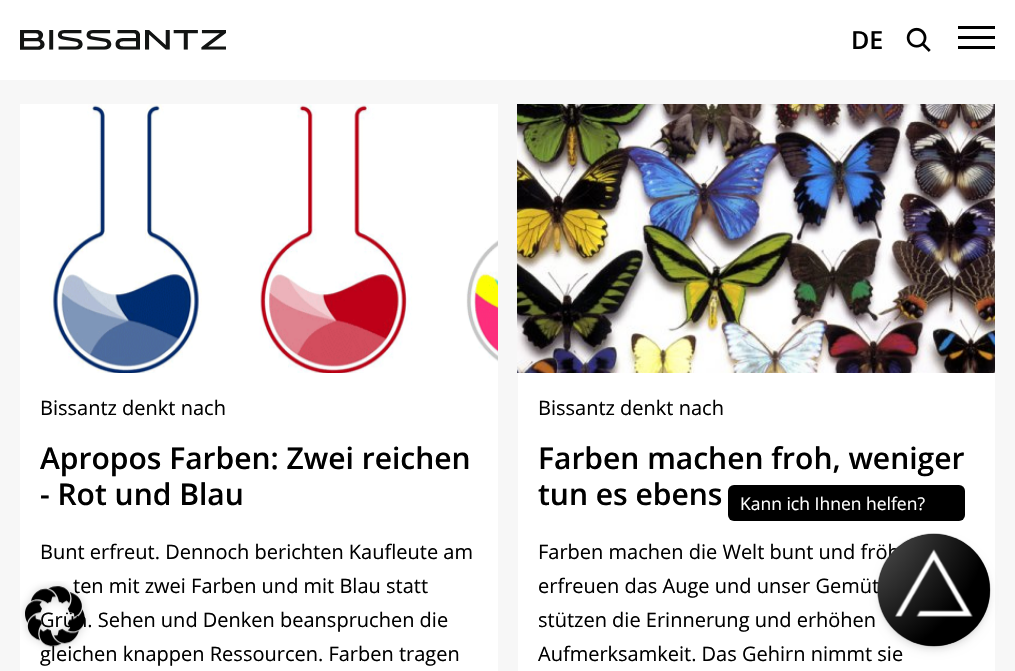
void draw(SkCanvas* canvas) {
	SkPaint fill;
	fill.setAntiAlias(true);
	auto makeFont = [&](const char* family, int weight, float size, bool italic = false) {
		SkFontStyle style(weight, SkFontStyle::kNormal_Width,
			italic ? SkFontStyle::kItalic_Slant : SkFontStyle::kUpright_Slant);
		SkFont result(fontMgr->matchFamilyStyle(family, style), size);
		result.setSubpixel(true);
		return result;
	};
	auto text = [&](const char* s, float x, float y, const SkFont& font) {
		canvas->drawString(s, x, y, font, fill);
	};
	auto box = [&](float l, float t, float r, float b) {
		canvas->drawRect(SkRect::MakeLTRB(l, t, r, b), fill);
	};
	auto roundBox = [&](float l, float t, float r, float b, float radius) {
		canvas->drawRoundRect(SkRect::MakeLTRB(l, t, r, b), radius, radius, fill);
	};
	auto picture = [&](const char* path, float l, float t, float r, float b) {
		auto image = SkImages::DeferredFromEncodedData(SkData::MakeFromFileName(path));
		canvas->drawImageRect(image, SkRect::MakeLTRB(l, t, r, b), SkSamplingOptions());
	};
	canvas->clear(0xFFF7F7F7);
	fill.setColor(0xFFFFFFFF);
	box(0, 0, 1015, 80);
	picture("image0.png", 20, 30, 226, 50);
	picture("image1.png", 906, 27, 931, 52);
	fill.setColor(0xFF000000);
	box(958, 46, 995, 49);
	box(958, 26, 995, 29);
	box(958, 36, 995, 39);
	picture("image2.png", 20, 104, 498, 373);
	fill.setColor(0xFFFFFFFF);
	box(20, 373, 498, 671);
	picture("image3.png", 517, 104, 995, 373);
	box(518, 373, 995, 671);
	fill.setColor(0xFF000000);
	roundBox(728, 485, 965, 521, 6);
	fill.setColor(0x1A000000);
	fill.setMaskFilter(SkMaskFilter::MakeBlur(kNormal_SkBlurStyle, 2.5f));
	canvas->drawRoundRect(SkRect::MakeLTRB(880, 539, 988, 646), 53.5f, 53.5f, fill);
	fill.setMaskFilter(nullptr);
	fill.setMaskFilter(SkMaskFilter::MakeBlur(kNormal_SkBlurStyle, 4));
	canvas->drawRoundRect(SkRect::MakeLTRB(879, 540, 989, 650), 55, 55, fill);
	fill.setMaskFilter(nullptr);
	fill.setColor(0xFF000000);
	canvas->drawCircle(934, 590, 56, fill);
	auto font1 = makeFont("Open Sans", 600, 25);
	text("DE", 851, 49, font1);
	auto font2 = makeFont("Open Sans", 400, 20);
	text("Bissantz denkt nach", 40, 415, font2);
	auto font3 = makeFont("Open Sans", 600, 30);
	text("Apropos Farben: Zwei reichen", 40, 469, font3);
	text("- Rot und Blau", 40, 505, font3);
	text("Bunt erfreut. Dennoch berichten Kaufleute am", 40, 559, font2);
	text("ten mit zwei Farben und mit Blau statt", 73, 593, font2);
	text("Grün. Sehen und Denken beanspruchen die", 40, 627, font2);
	text("gleichen knappen Ressourcen. Farben tragen", 40, 661, font2);
	text("Bissantz denkt nach", 538, 415, font2);
	text("Farben machen froh, weniger", 538, 469, font3);
	text("tun es ebens", 538, 505, font3);
	text("Farben machen die Welt bunt und fröh", 538, 559, font2);
	text("erfreuen das Auge und unser Gemüt", 538, 593, font2);
	text("stützen die Erinnerung und erhöhen", 538, 627, font2);
	text("Aufmerksamkeit. Das Gehirn nimmt sie", 538, 661, font2);
	auto font4 = makeFont("Open Sans", 400, 17.5f);
	fill.setColor(0xFFFFFFFF);
	text("Kann ich Ihnen helfen?", 740, 510, font4);
	picture("image4.png", 877, 533, 991, 647);
	picture("image5.png", 20, 581, 90, 651);
}
